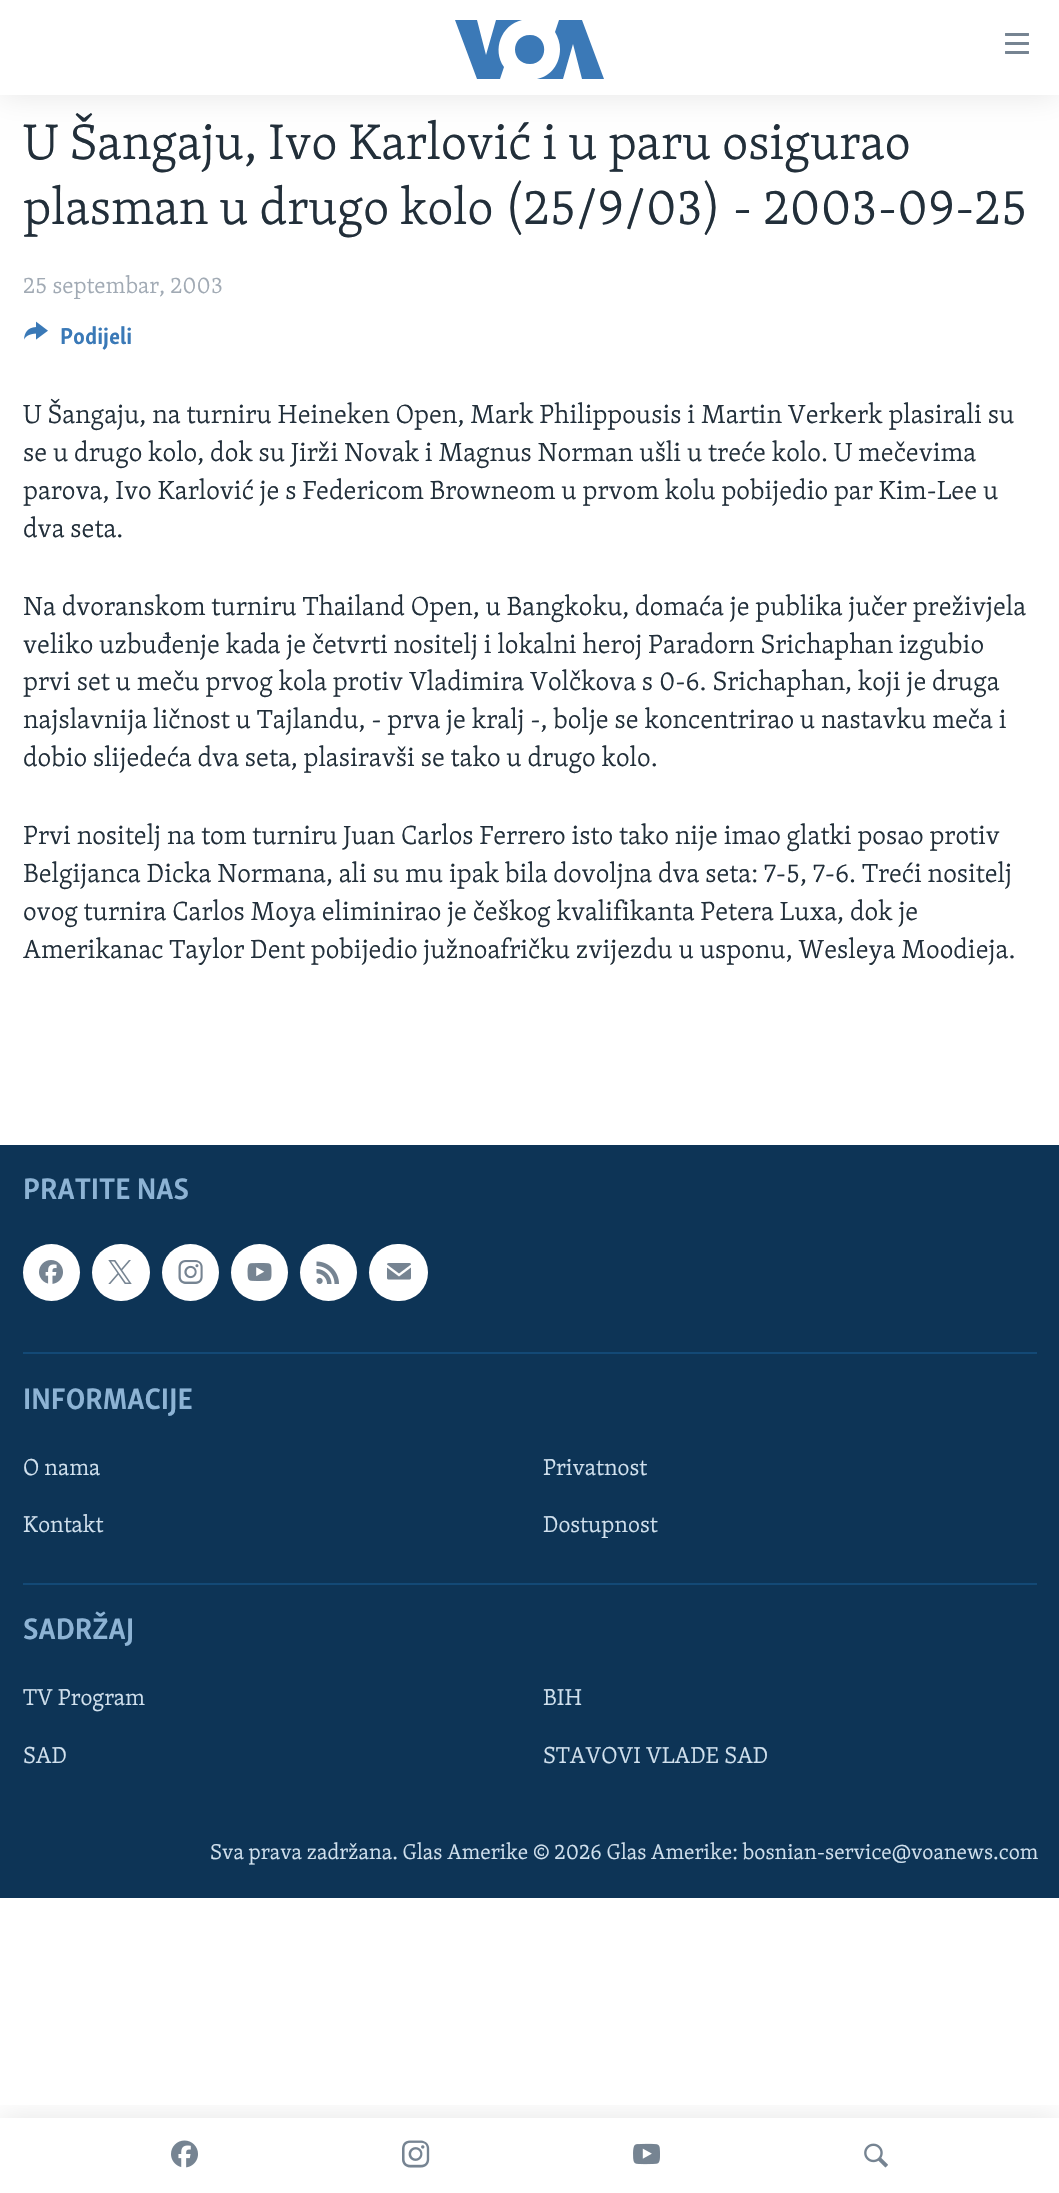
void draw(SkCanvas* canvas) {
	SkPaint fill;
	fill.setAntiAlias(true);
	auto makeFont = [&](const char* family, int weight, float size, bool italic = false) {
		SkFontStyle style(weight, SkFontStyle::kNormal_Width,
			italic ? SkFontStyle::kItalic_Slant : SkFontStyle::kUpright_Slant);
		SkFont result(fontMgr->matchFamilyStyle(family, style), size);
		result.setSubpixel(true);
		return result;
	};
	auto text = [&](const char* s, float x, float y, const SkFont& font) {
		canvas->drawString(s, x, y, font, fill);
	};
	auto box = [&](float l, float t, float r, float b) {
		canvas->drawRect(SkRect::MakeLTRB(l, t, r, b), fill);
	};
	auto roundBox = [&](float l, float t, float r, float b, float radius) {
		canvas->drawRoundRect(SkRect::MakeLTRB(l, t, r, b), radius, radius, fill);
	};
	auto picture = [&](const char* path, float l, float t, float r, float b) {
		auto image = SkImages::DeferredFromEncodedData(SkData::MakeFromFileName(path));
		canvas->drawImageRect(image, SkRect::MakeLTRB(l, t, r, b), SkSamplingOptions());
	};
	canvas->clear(0xFFFFFFFF);
	fill.setColor(0x1A000000);
	fill.setMaskFilter(SkMaskFilter::MakeBlur(kNormal_SkBlurStyle, 15));
	canvas->drawRect(SkRect::MakeLTRB(0, 0, 1059, 95), fill);
	fill.setMaskFilter(nullptr);
	fill.setColor(0xFFFFFFFF);
	box(0, 0, 1059, 95);
	fill.setColor(0xFF3B79B7);
	canvas->drawPath(SkPathBuilder().moveTo(504, 67).lineTo(500, 79).lineTo(477, 79).lineTo(455, 20).lineTo(477, 20).lineTo(486, 55).lineTo(496, 20).lineTo(522, 20).cubicTo(501, 25, 492, 50, 504, 67).close().moveTo(530, 35).cubicTo(510, 35, 510, 64, 530, 64).cubicTo(549, 64, 549, 35, 530, 35).close().moveTo(560, 49).cubicTo(560, 64, 551, 76, 537, 79).lineTo(563, 79).lineTo(573, 44).lineTo(582, 79).lineTo(604, 79).lineTo(582, 20).lineTo(559, 20).lineTo(555, 32).cubicTo(558, 37, 560, 43, 560, 49).close().detach(), fill);
	picture("image0.png", 1005, 33, 1029, 54);
	canvas->save();
	canvas->clipRect(SkRect::MakeLTRB(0, 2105, 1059, 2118));
	fill.setColor(0x1A000000);
	fill.setMaskFilter(SkMaskFilter::MakeBlur(kNormal_SkBlurStyle, 15));
	canvas->drawRect(SkRect::MakeLTRB(0, 2118, 1059, 2193), fill);
	fill.setMaskFilter(nullptr);
	canvas->restore();
	picture("image1.png", 171, 2140, 198, 2168);
	picture("image2.png", 402, 2140, 430, 2168);
	picture("image3.png", 633, 2143, 660, 2165);
	picture("image4.png", 864, 2143, 888, 2168);
	picture("image5.png", 24, 321, 48, 340);
	fill.setColor(0xFF0D3456);
	box(0, 1145, 1059, 1898);
	fill.setColor(0xFFFFFFFF);
	canvas->drawCircle(51.5f, 1272.5f, 28.5f, fill);
	picture("image6.png", 39, 1260, 63, 1284);
	roundBox(92, 1244, 150, 1301, 28.5f);
	picture("image7.png", 108, 1260, 132, 1284);
	canvas->drawCircle(190.5f, 1272.5f, 28.5f, fill);
	picture("image8.png", 178, 1260, 203, 1284);
	canvas->drawCircle(259.5f, 1272.5f, 28.5f, fill);
	picture("image9.png", 247, 1263, 272, 1281);
	canvas->drawCircle(328.5f, 1272.5f, 28.5f, fill);
	picture("image10.png", 316, 1261, 339, 1284);
	roundBox(369, 1244, 428, 1301, 28.5f);
	picture("image11.png", 387, 1263, 411, 1280);
	fill.setColor(0xFF134976);
	box(23, 1352, 1037, 1354);
	box(23, 1583, 1037, 1585);
	auto font1 = makeFont("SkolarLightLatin", 300, 51.25f);
	fill.setColor(0xFF222F3A);
	text("U Šangaju, Ivo Karlović i u paru osigurao", 23, 159, font1);
	text("plasman u drugo kolo (25/9/03) - 2003-09-25", 23, 224, font1);
	auto font2 = makeFont("SkolarLightLatin", 300, 23.6f);
	fill.setColor(0xFFA1AAB4);
	text("25 septembar, 2003", 23, 293, font2);
	auto font3 = makeFont("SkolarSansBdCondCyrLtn", 700, 23.6f);
	fill.setColor(0xFF3A79B7);
	text("Podijeli", 60, 344, font3);
	auto font4 = makeFont("SkolarLightLatin", 300, 27);
	fill.setColor(0xFF222F3A);
	text("U Šangaju, na turniru Heineken Open, Mark Philippousis i Martin Verkerk plasirali su", 23, 423, font4);
	text("se u drugo kolo, dok su Jirži Novak i Magnus Norman ušli u treće kolo. U mečevima", 23, 461, font4);
	text("parova, Ivo Karlović je s Federicom Browneom u prvom kolu pobijedio par Kim-Lee u", 23, 499, font4);
	text("dva seta.", 23, 537, font4);
	text("Na dvoranskom turniru Thailand Open, u Bangkoku, domaća je publika jučer preživjela", 23, 615, font4);
	text("veliko uzbuđenje kada je četvrti nositelj i lokalni heroj Paradorn Srichaphan izgubio", 23, 653, font4);
	text("prvi set u meču prvog kola protiv Vladimira Volčkova s 0-6. Srichaphan, koji je druga", 23, 690, font4);
	text("najslavnija ličnost u Tajlandu, - prva je kralj -, bolje se koncentrirao u nastavku meča i", 23, 728, font4);
	text("dobio slijedeća dva seta, plasiravši se tako u drugo kolo.", 23, 766, font4);
	text("Prvi nositelj na tom turniru Juan Carlos Ferrero isto tako nije imao glatki posao protiv", 23, 844, font4);
	text("Belgijanca Dicka Normana, ali su mu ipak bila dovoljna dva seta: 7-5, 7-6. Treći nositelj", 23, 882, font4);
	text("ovog turnira Carlos Moya eliminirao je češkog kvalifikanta Petera Luxa, dok je", 23, 920, font4);
	text("Amerikanac Taylor Dent pobijedio južnoafričku zvijezdu u usponu, Wesleya Moodieja.", 23, 958, font4);
	auto font5 = makeFont("SkolarSansBdCondCyrLtn", 700, 30.5f);
	fill.setColor(0xFF8DB3D4);
	text("PRATITE NAS", 23, 1199, font5);
	text("INFORMACIJE", 23, 1409, font5);
	fill.setColor(0xFFD1E1EE);
	text("O nama", 23, 1475, font2);
	text("Privatnost", 543, 1475, font2);
	text("Kontakt", 23, 1532, font2);
	text("Dostupnost", 543, 1532, font2);
	fill.setColor(0xFF8DB3D4);
	text("SADRŽAJ", 23, 1639, font5);
	fill.setColor(0xFFD1E1EE);
	text("TV Program", 23, 1705, font2);
	text("BIH", 543, 1705, font2);
	text("SAD", 23, 1763, font2);
	text("STAVOVI VLADE SAD", 543, 1763, font2);
	auto font6 = makeFont("SkolarLightLatin", 300, 21.95f);
	text("Sva prava zadržana. Glas Amerike © 2026 Glas Amerike: bosnian-service@voanews.com", 210, 1859, font6);
}
